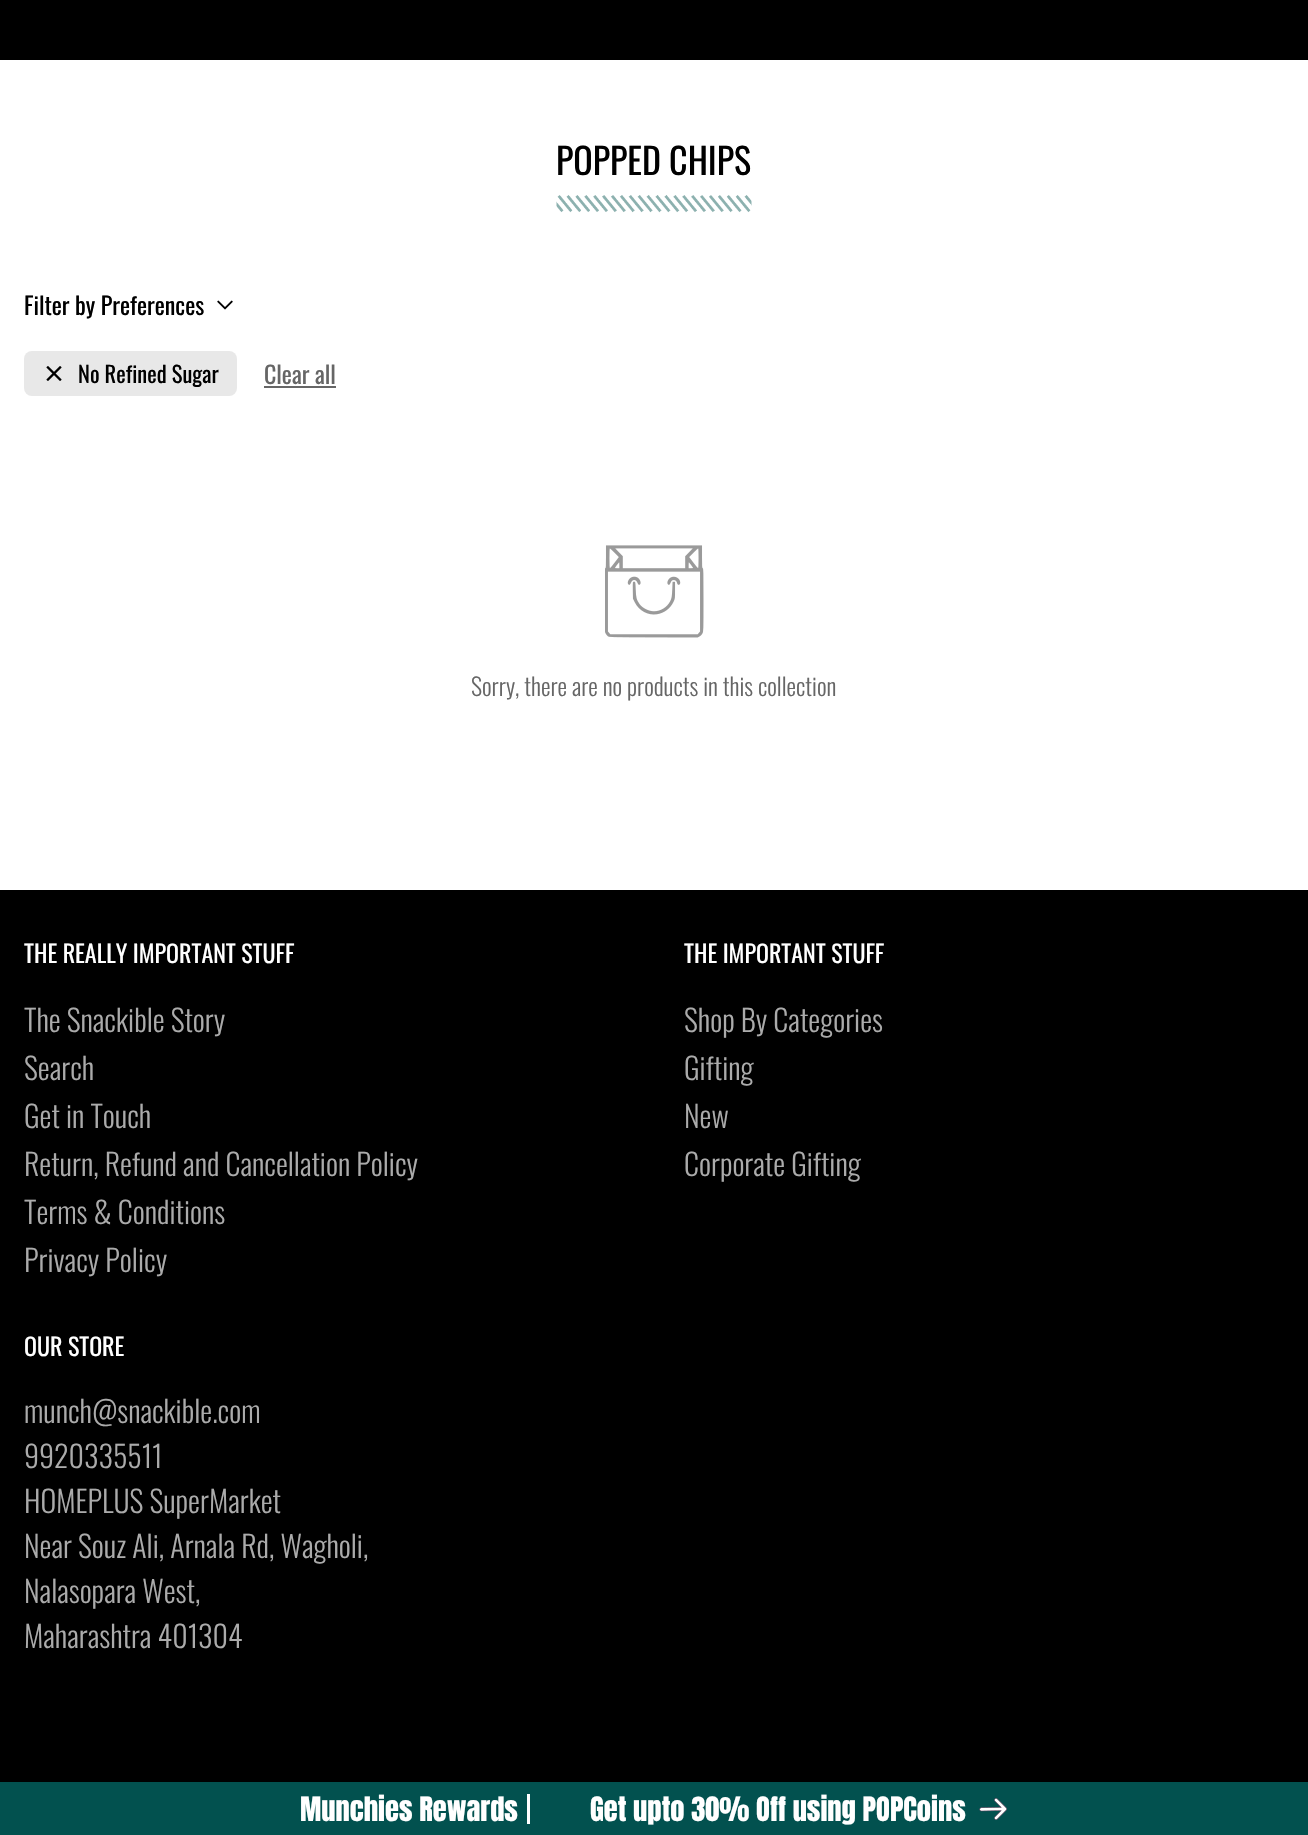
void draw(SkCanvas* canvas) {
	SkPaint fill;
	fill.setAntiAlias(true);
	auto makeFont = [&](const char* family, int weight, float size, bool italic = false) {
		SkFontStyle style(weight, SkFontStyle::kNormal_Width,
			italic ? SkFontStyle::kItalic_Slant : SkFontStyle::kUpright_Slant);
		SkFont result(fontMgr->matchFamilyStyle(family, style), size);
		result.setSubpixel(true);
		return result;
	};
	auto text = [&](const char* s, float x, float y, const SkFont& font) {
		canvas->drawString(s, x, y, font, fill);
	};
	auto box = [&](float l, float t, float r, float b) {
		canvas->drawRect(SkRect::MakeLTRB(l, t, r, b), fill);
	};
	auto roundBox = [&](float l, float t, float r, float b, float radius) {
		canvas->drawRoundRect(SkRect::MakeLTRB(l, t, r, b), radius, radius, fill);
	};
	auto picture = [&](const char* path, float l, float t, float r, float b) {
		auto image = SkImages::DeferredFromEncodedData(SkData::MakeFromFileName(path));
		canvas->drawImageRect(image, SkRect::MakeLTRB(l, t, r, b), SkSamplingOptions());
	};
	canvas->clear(0xFFFFFFFF);
	fill.setColor(0xFF000000);
	box(0, 0, 1308, 60);
	picture("image0.png", 556, 195, 752, 213);
	picture("image1.png", 217, 300, 233, 310);
	fill.setColor(0xFFE8E8E8);
	roundBox(24, 351, 237, 396, 8);
	picture("image2.png", 46, 366, 62, 381);
	fill.setColor(0xFF666666);
	box(264, 386, 336, 388);
	picture("image3.png", 605, 545, 704, 638);
	fill.setColor(0xFF000000);
	box(0, 890, 1308, 1782);
	fill.setColor(0xFF02514F);
	box(0, 1782, 1308, 1835);
	fill.setColor(0xFFFFFFFF);
	box(527, 1794, 530, 1824);
	picture("image4.png", 979, 1798, 1007, 1820);
	auto font1 = makeFont("Oswald", 400, 36);
	fill.setColor(0xFF000000);
	text("POPPED CHIPS", 556, 175, font1);
	auto font2 = makeFont("Oswald", 400, 24);
	text("Filter by Preferences", 24, 315, font2);
	auto font3 = makeFont("Oswald", 400, 22.5f);
	text("No Refined Sugar", 78, 383, font3);
	fill.setColor(0xFF666666);
	text("Clear all", 264, 384, font2);
	auto font4 = makeFont("Oswald", 300, 24);
	text("Sorry, there are no products in this collection", 471, 696, font4);
	fill.setColor(0xFFFFFFFF);
	text("THE REALLY IMPORTANT STUFF", 24, 963, font2);
	auto font5 = makeFont("Oswald", 300, 30);
	fill.setColor(0xFFABABAB);
	text("The Snackible Story", 24, 1032, font5);
	text("Search", 24, 1080, font5);
	text("Get in Touch", 24, 1128, font5);
	text("Return, Refund and Cancellation Policy", 24, 1176, font5);
	text("Terms & Conditions", 24, 1224, font5);
	text("Privacy Policy", 24, 1272, font5);
	fill.setColor(0xFFFFFFFF);
	text("THE IMPORTANT STUFF", 684, 963, font2);
	fill.setColor(0xFFABABAB);
	text("Shop By Categories", 684, 1032, font5);
	text("Gifting", 684, 1080, font5);
	text("New", 684, 1128, font5);
	text("Corporate Gifting", 684, 1176, font5);
	fill.setColor(0xFFFFFFFF);
	text("OUR STORE", 24, 1356, font2);
	fill.setColor(0xFFABABAB);
	text("munch@snackible.com", 24, 1423, font5);
	text("9920335511", 24, 1468, font5);
	text("HOMEPLUS SuperMarket", 24, 1513, font5);
	text("Near Souz Ali, Arnala Rd, Wagholi,", 24, 1558, font5);
	text("Nalasopara West,", 24, 1603, font5);
	text("Maharashtra 401304", 24, 1648, font5);
	auto font6 = makeFont("Anton", 400, 28.5f);
	fill.setColor(0xFFFFFFFF);
	text("Munchies Rewards", 300, 1821, font6);
	text("Get upto 30% Off using POPCoins", 590, 1821, font6);
}
